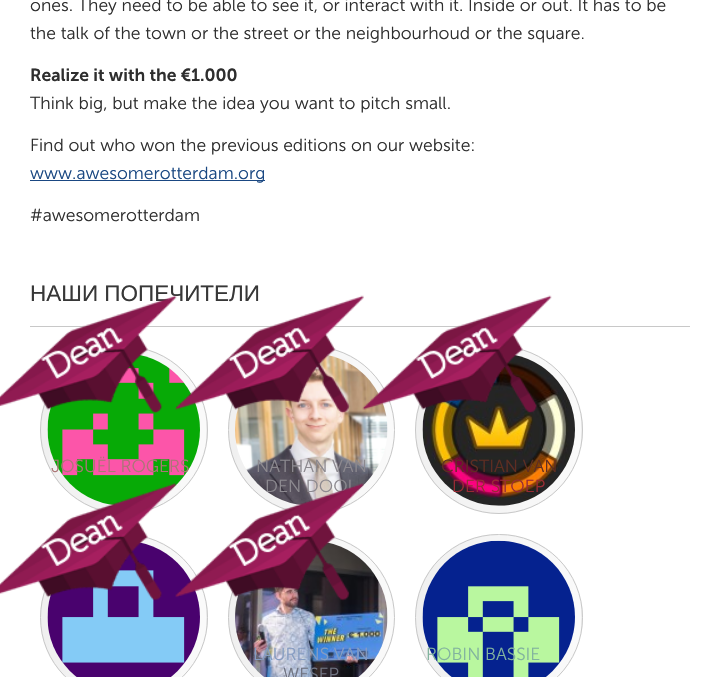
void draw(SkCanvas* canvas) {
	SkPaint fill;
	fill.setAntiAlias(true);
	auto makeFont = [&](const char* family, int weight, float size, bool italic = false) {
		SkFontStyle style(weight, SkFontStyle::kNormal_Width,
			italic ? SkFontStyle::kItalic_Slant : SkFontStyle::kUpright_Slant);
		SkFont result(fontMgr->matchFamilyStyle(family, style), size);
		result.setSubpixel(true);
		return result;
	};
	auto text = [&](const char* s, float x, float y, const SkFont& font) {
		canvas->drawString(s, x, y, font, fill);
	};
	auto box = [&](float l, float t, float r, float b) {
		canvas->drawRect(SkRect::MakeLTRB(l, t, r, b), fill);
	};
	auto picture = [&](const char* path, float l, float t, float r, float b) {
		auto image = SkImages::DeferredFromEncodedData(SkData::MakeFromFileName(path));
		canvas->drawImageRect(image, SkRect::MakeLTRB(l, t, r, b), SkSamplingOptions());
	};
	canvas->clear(0xFFFFFFFF);
	fill.setColor(0xFF1A4882);
	box(30, 180, 265, 181);
	fill.setColor(0xFFC8C8C8);
	box(30, 326, 690, 327);
	canvas->save();
	canvas->clipPath(SkPathBuilder().moveTo(124, 346).cubicTo(170.5f, 346, 208, 383.5f, 208, 430).cubicTo(208, 476.5f, 170.5f, 514, 124, 514).cubicTo(77.5f, 514, 40, 476.5f, 40, 430).cubicTo(40, 383.5f, 77.5f, 346, 124, 346).close().detach(), true);
	{
		const SkColor colors[] = {0xFFF0F0F0, 0xFFFAFAFA};
		const float stops[] = {0, 1};
		const SkPoint ends[] = {{41, 430}, {206, 430}};
		fill.setShader(SkGradientShader::MakeLinear(ends, colors, stops, 2, SkTileMode::kClamp));
		fill.setAlpha(255);
	}
	box(41, 348, 206, 511);
	{
		const SkColor colors[] = {0xFFF0F0F0, 0xFFFAFAFA};
		const float stops[] = {0, 1};
		const SkPoint ends[] = {{206, 430}, {371, 430}};
		fill.setShader(SkGradientShader::MakeLinear(ends, colors, stops, 2, SkTileMode::kClamp));
		fill.setAlpha(255);
	}
	box(206, 412, 208, 448);
	canvas->restore();
	fill.setStyle(SkPaint::kStroke_Style);
	fill.setStrokeWidth(1);
	fill.setShader(nullptr);
	fill.setColor(0xFFC8C8C8);
	canvas->drawCircle(124, 430, 83.5f, fill);
	picture("image1.png", 47, 354, 200, 505);
	canvas->save();
	canvas->clipPath(SkPathBuilder().moveTo(311.5f, 346).cubicTo(357.5f, 346, 395, 383.5f, 395, 429.5f).lineTo(395, 430.5f).cubicTo(395, 476.5f, 357.5f, 514, 311.5f, 514).cubicTo(265.5f, 514, 228, 476.5f, 228, 430.5f).lineTo(228, 429.5f).cubicTo(228, 383.5f, 265.5f, 346, 311.5f, 346).close().detach(), true);
	fill.setStyle(SkPaint::kFill_Style);
	{
		const SkColor colors[] = {0xFFF0F0F0, 0xFFFAFAFA};
		const float stops[] = {0, 1};
		const SkPoint ends[] = {{229, 430}, {394, 430}};
		fill.setShader(SkGradientShader::MakeLinear(ends, colors, stops, 2, SkTileMode::kClamp));
		fill.setAlpha(255);
	}
	box(229, 348, 394, 511);
	canvas->restore();
	fill.setStyle(SkPaint::kStroke_Style);
	fill.setShader(nullptr);
	fill.setColor(0xFFC8C8C8);
	canvas->drawRoundRect(SkRect::MakeLTRB(228.5f, 346.5f, 394.5f, 513.5f), 83, 83, fill);
	picture("image3.png", 235, 355, 388, 505);
	canvas->save();
	canvas->clipPath(SkPathBuilder().moveTo(499, 346).cubicTo(545.5f, 346, 583, 383.5f, 583, 430).cubicTo(583, 476.5f, 545.5f, 514, 499, 514).cubicTo(452.5f, 514, 415, 476.5f, 415, 430).cubicTo(415, 383.5f, 452.5f, 346, 499, 346).close().detach(), true);
	fill.setStyle(SkPaint::kFill_Style);
	{
		const SkColor colors[] = {0xFFF0F0F0, 0xFFFAFAFA};
		const float stops[] = {0, 1};
		const SkPoint ends[] = {{416, 430}, {581, 430}};
		fill.setShader(SkGradientShader::MakeLinear(ends, colors, stops, 2, SkTileMode::kClamp));
		fill.setAlpha(255);
	}
	box(416, 348, 581, 514);
	{
		const SkColor colors[] = {0xFFF0F0F0, 0xFFFAFAFA};
		const float stops[] = {0, 1};
		const SkPoint ends[] = {{581, 430}, {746, 430}};
		fill.setShader(SkGradientShader::MakeLinear(ends, colors, stops, 2, SkTileMode::kClamp));
		fill.setAlpha(255);
	}
	box(581, 412, 583, 448);
	canvas->restore();
	fill.setStyle(SkPaint::kStroke_Style);
	fill.setShader(nullptr);
	fill.setColor(0xFFC8C8C8);
	canvas->drawCircle(499, 430, 83.5f, fill);
	picture("image5.png", 422, 354, 575, 506);
	canvas->save();
	canvas->clipPath(SkPathBuilder().moveTo(123.5f, 534).lineTo(124.5f, 534).cubicTo(170.5f, 534, 208, 571.5f, 208, 617.5f).cubicTo(208, 663.5f, 170.5f, 701, 124.5f, 701).lineTo(123.5f, 701).cubicTo(77.5f, 701, 40, 663.5f, 40, 617.5f).cubicTo(40, 571.5f, 77.5f, 534, 123.5f, 534).close().detach(), true);
	fill.setStyle(SkPaint::kFill_Style);
	{
		const SkColor colors[] = {0xFFF0F0F0, 0xFFFAFAFA};
		const float stops[] = {0, 1};
		const SkPoint ends[] = {{41, 618}, {206, 618}};
		fill.setShader(SkGradientShader::MakeLinear(ends, colors, stops, 2, SkTileMode::kClamp));
		fill.setAlpha(255);
	}
	box(41, 536, 206, 677);
	{
		const SkColor colors[] = {0xFFF0F0F0, 0xFFFAFAFA};
		const float stops[] = {0, 1};
		const SkPoint ends[] = {{206, 618}, {371, 618}};
		fill.setShader(SkGradientShader::MakeLinear(ends, colors, stops, 2, SkTileMode::kClamp));
		fill.setAlpha(255);
	}
	box(206, 599, 208, 636);
	canvas->restore();
	fill.setStyle(SkPaint::kStroke_Style);
	fill.setShader(nullptr);
	fill.setColor(0xFFC8C8C8);
	canvas->drawRoundRect(SkRect::MakeLTRB(40.5f, 534.5f, 207.5f, 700.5f), 83, 83, fill);
	picture("image7.png", 47, 542, 200, 677);
	picture("image6.png", 0, 483, 177, 601);
	canvas->save();
	canvas->clipPath(SkPathBuilder().moveTo(311.5f, 534).cubicTo(357.5f, 534, 395, 571.5f, 395, 617.5f).cubicTo(395, 663.5f, 357.5f, 701, 311.5f, 701).cubicTo(265.5f, 701, 228, 663.5f, 228, 617.5f).cubicTo(228, 571.5f, 265.5f, 534, 311.5f, 534).close().detach(), true);
	fill.setStyle(SkPaint::kFill_Style);
	{
		const SkColor colors[] = {0xFFF0F0F0, 0xFFFAFAFA};
		const float stops[] = {0, 1};
		const SkPoint ends[] = {{229, 618}, {394, 618}};
		fill.setShader(SkGradientShader::MakeLinear(ends, colors, stops, 2, SkTileMode::kClamp));
		fill.setAlpha(255);
	}
	box(229, 536, 394, 677);
	canvas->restore();
	fill.setStyle(SkPaint::kStroke_Style);
	fill.setShader(nullptr);
	fill.setColor(0xFFC8C8C8);
	canvas->drawCircle(311.5f, 617.5f, 83, fill);
	picture("image9.png", 235, 542, 388, 677);
	canvas->save();
	canvas->clipPath(SkPathBuilder().moveTo(498.5f, 534).lineTo(499.5f, 534).cubicTo(545.5f, 534, 583, 571.5f, 583, 617.5f).cubicTo(583, 663.5f, 545.5f, 701, 499.5f, 701).lineTo(498.5f, 701).cubicTo(452.5f, 701, 415, 663.5f, 415, 617.5f).cubicTo(415, 571.5f, 452.5f, 534, 498.5f, 534).close().detach(), true);
	fill.setStyle(SkPaint::kFill_Style);
	{
		const SkColor colors[] = {0xFFF0F0F0, 0xFFFAFAFA};
		const float stops[] = {0, 1};
		const SkPoint ends[] = {{416, 618}, {581, 618}};
		fill.setShader(SkGradientShader::MakeLinear(ends, colors, stops, 2, SkTileMode::kClamp));
		fill.setAlpha(255);
	}
	box(416, 534, 581, 677);
	{
		const SkColor colors[] = {0xFFF0F0F0, 0xFFFAFAFA};
		const float stops[] = {0, 1};
		const SkPoint ends[] = {{581, 618}, {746, 618}};
		fill.setShader(SkGradientShader::MakeLinear(ends, colors, stops, 2, SkTileMode::kClamp));
		fill.setAlpha(255);
	}
	box(581, 599, 583, 636);
	canvas->restore();
	fill.setStyle(SkPaint::kStroke_Style);
	fill.setShader(nullptr);
	fill.setColor(0xFFC8C8C8);
	canvas->drawRoundRect(SkRect::MakeLTRB(415.5f, 534.5f, 582.5f, 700.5f), 83, 83, fill);
	picture("image10.png", 422, 540, 575, 677);
	auto font1 = makeFont("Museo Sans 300", 300, 17.5f);
	fill.setStyle(SkPaint::kFill_Style);
	fill.setColor(0xFF2E2E2E);
	text("ones. They need to be able to see it, or interact with it. Inside or out. It has to be", 30, 11, font1);
	text("the talk of the town or the street or the neighbourhoud or the square.", 30, 39, font1);
	auto font2 = makeFont("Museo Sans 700", 600, 17.5f);
	text("Realize it with the €1.000", 30, 81, font2);
	text("Think big, but make the idea you want to pitch small.", 30, 109, font1);
	text("Find out who won the previous editions on our website:", 30, 151, font1);
	fill.setColor(0xFF1A4882);
	text("www.awesomerotterdam.org", 30, 179, font1);
	fill.setColor(0xFF2E2E2E);
	text("#awesomerotterdam", 30, 221, font1);
	auto font3 = makeFont("Liberation Sans", 400, 22.5f);
	fill.setColor(0xFF373737);
	text("НАШИ ПОПЕЧИТЕЛИ", 30, 301, font3);
	picture("image0.png", 0, 295, 177, 414);
	fill.setColor(0xFFAB7676);
	text("JOSUËL ROGERS", 51, 472, font1);
	picture("image2.png", 175, 295, 364, 414);
	fill.setColor(0xFF8C898F);
	text("NATHAN VAN", 256, 472, font1);
	text("DEN DOOL", 265, 492, font1);
	picture("image4.png", 362, 295, 552, 413);
	fill.setColor(0xFF5E2D22);
	text("CRISTIAN VAN", 441, 472, font1);
	fill.setColor(0xFF982B34);
	text("DER STOEP", 452, 492, font1);
	picture("image8.png", 175, 483, 364, 601);
	fill.setColor(0xFF859CC2);
	text("LAURENS VAN", 253, 660, font1);
	fill.setColor(0xFF6F7381);
	text("WESEP", 283, 680, font1);
	fill.setColor(0xFF82B39E);
	text("ROBIN BASSIE", 426, 660, font1);
}
